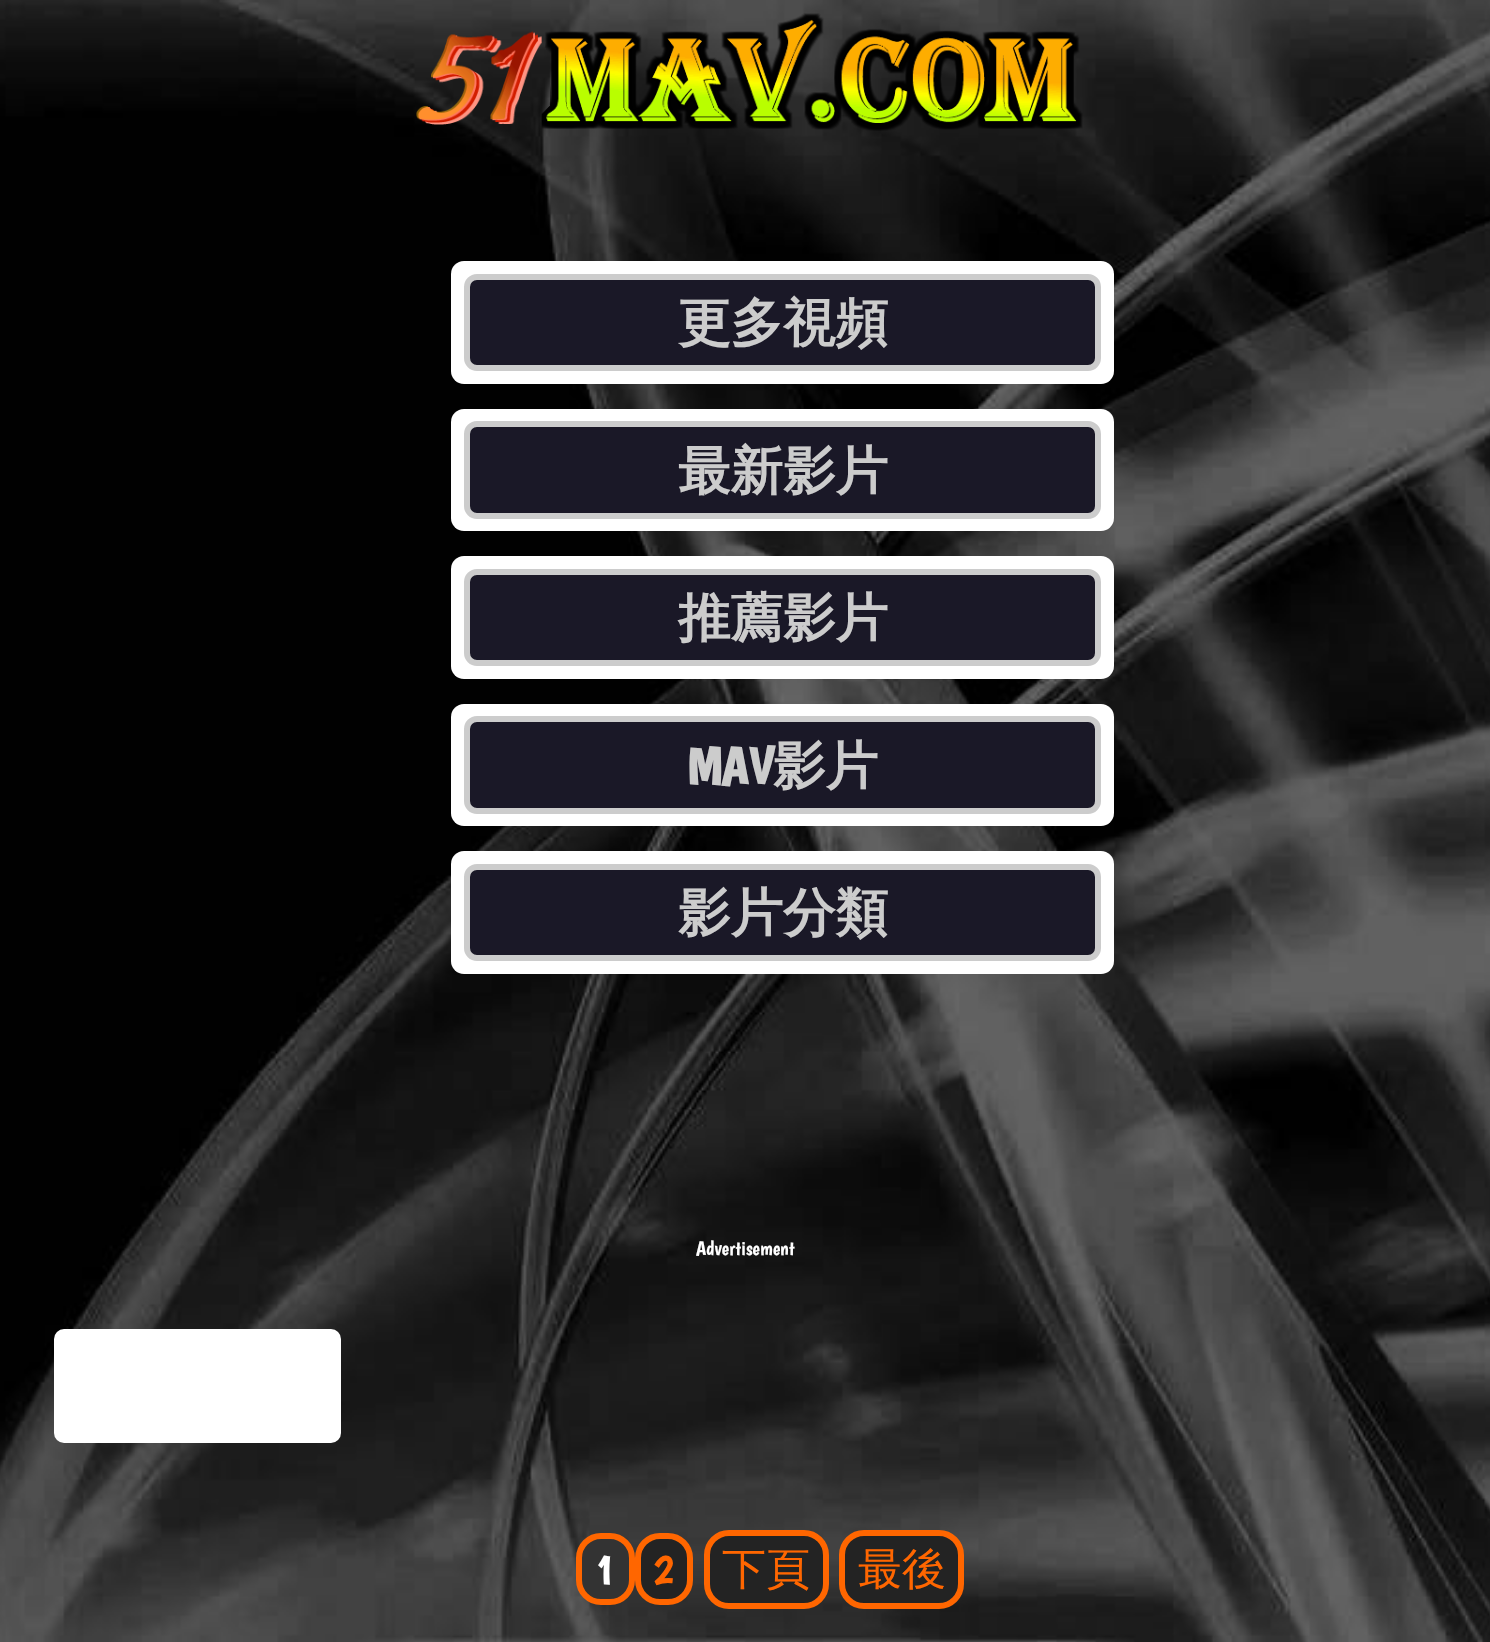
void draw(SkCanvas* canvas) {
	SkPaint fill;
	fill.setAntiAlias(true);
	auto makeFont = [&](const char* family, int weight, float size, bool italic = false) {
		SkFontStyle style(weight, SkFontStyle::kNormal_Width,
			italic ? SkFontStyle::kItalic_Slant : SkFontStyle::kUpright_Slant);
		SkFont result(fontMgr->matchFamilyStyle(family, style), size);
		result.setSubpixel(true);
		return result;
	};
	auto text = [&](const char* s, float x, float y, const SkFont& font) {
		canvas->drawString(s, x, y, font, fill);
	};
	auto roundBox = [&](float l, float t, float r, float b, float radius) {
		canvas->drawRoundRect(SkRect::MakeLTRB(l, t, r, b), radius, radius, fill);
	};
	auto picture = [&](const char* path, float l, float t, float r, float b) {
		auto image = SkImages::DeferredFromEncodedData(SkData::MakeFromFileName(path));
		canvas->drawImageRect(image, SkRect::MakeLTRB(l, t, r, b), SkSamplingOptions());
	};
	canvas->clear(0xFFFFFFFF);
	picture("image0.png", 0, 0, 1490, 1642);
	picture("image1.png", 416, 13, 1083, 131);
	fill.setColor(0xFFFFFFFF);
	roundBox(451, 261, 1114, 384, 13);
	fill.setColor(0xFF1A1827);
	canvas->drawRoundRect(SkRect::MakeLTRB(467, 277, 1098, 368), 10, 10, fill);
	fill.setStyle(SkPaint::kStroke_Style);
	fill.setStrokeWidth(6);
	fill.setColor(0xFFCCCCCC);
	canvas->drawRoundRect(SkRect::MakeLTRB(467, 277, 1098, 368), 10, 10, fill);
	fill.setStyle(SkPaint::kFill_Style);
	fill.setColor(0xFFFFFFFF);
	roundBox(451, 409, 1114, 531, 13);
	fill.setColor(0xFF1A1827);
	canvas->drawRoundRect(SkRect::MakeLTRB(467, 424, 1098, 516), 10, 10, fill);
	fill.setStyle(SkPaint::kStroke_Style);
	fill.setColor(0xFFCCCCCC);
	canvas->drawRoundRect(SkRect::MakeLTRB(467, 424, 1098, 516), 10, 10, fill);
	fill.setStyle(SkPaint::kFill_Style);
	fill.setColor(0xFFFFFFFF);
	roundBox(451, 556, 1114, 679, 13);
	fill.setColor(0xFF1A1827);
	canvas->drawRoundRect(SkRect::MakeLTRB(467, 572, 1098, 663), 10, 10, fill);
	fill.setStyle(SkPaint::kStroke_Style);
	fill.setColor(0xFFCCCCCC);
	canvas->drawRoundRect(SkRect::MakeLTRB(467, 572, 1098, 663), 10, 10, fill);
	fill.setStyle(SkPaint::kFill_Style);
	fill.setColor(0xFFFFFFFF);
	roundBox(451, 704, 1114, 826, 13);
	fill.setColor(0xFF1A1827);
	canvas->drawRoundRect(SkRect::MakeLTRB(467, 719, 1098, 811), 10, 10, fill);
	fill.setStyle(SkPaint::kStroke_Style);
	fill.setColor(0xFFCCCCCC);
	canvas->drawRoundRect(SkRect::MakeLTRB(467, 719, 1098, 811), 10, 10, fill);
	fill.setStyle(SkPaint::kFill_Style);
	fill.setColor(0xFFFFFFFF);
	roundBox(451, 851, 1114, 974, 13);
	fill.setColor(0xFF1A1827);
	canvas->drawRoundRect(SkRect::MakeLTRB(467, 867, 1098, 958), 10, 10, fill);
	fill.setStyle(SkPaint::kStroke_Style);
	fill.setColor(0xFFCCCCCC);
	canvas->drawRoundRect(SkRect::MakeLTRB(467, 867, 1098, 958), 10, 10, fill);
	fill.setStyle(SkPaint::kFill_Style);
	fill.setColor(0xFFFFFFFF);
	roundBox(54, 1329, 341, 1443, 10);
	fill.setColor(0xFF333333);
	canvas->drawRoundRect(SkRect::MakeLTRB(579, 1536, 632, 1602), 22, 22, fill);
	fill.setStyle(SkPaint::kStroke_Style);
	fill.setColor(0xFFFF6600);
	canvas->drawRoundRect(SkRect::MakeLTRB(579, 1536, 632, 1602), 22, 22, fill);
	fill.setStyle(SkPaint::kFill_Style);
	fill.setColor(0xFF232323);
	canvas->drawRoundRect(SkRect::MakeLTRB(638, 1536, 690, 1602), 22, 22, fill);
	fill.setStyle(SkPaint::kStroke_Style);
	fill.setColor(0xFFFF6600);
	canvas->drawRoundRect(SkRect::MakeLTRB(638, 1536, 690, 1602), 22, 22, fill);
	fill.setStyle(SkPaint::kFill_Style);
	fill.setColor(0xFF232323);
	canvas->drawRoundRect(SkRect::MakeLTRB(707, 1533, 826, 1606), 22, 22, fill);
	fill.setStyle(SkPaint::kStroke_Style);
	fill.setColor(0xFFFF6600);
	canvas->drawRoundRect(SkRect::MakeLTRB(707, 1533, 826, 1606), 22, 22, fill);
	fill.setStyle(SkPaint::kFill_Style);
	fill.setColor(0xFF232323);
	canvas->drawRoundRect(SkRect::MakeLTRB(842, 1533, 961, 1606), 22, 22, fill);
	fill.setStyle(SkPaint::kStroke_Style);
	fill.setColor(0xFFFF6600);
	canvas->drawRoundRect(SkRect::MakeLTRB(842, 1533, 961, 1606), 22, 22, fill);
	auto font1 = makeFont("WenQuanYi Zen Hei", 700, 52.5f);
	fill.setStyle(SkPaint::kFill_Style);
	fill.setColor(0xFFCCCCCC);
	text("更多視頻", 678, 341, font1);
	text("最新影片", 678, 489, font1);
	text("推薦影片", 678, 636, font1);
	auto font2 = makeFont("Boogaloo", 700, 52.5f);
	text("MAV", 687, 784, font2);
	text("影片", 773, 784, font1);
	text("影片分類", 678, 931, font1);
	auto font3 = makeFont("Boogaloo", 400, 20);
	fill.setColor(0xFFFFFFFF);
	text("Advertisement", 696, 1255, font3);
	auto font4 = makeFont("Boogaloo", 400, 44);
	text("1", 594, 1584, font4);
	fill.setColor(0xFFFF6600);
	text("2", 653, 1584, font4);
	auto font5 = makeFont("WenQuanYi Zen Hei", 500, 44);
	text("下頁", 722, 1584, font5);
	text("最後", 858, 1584, font5);
}
